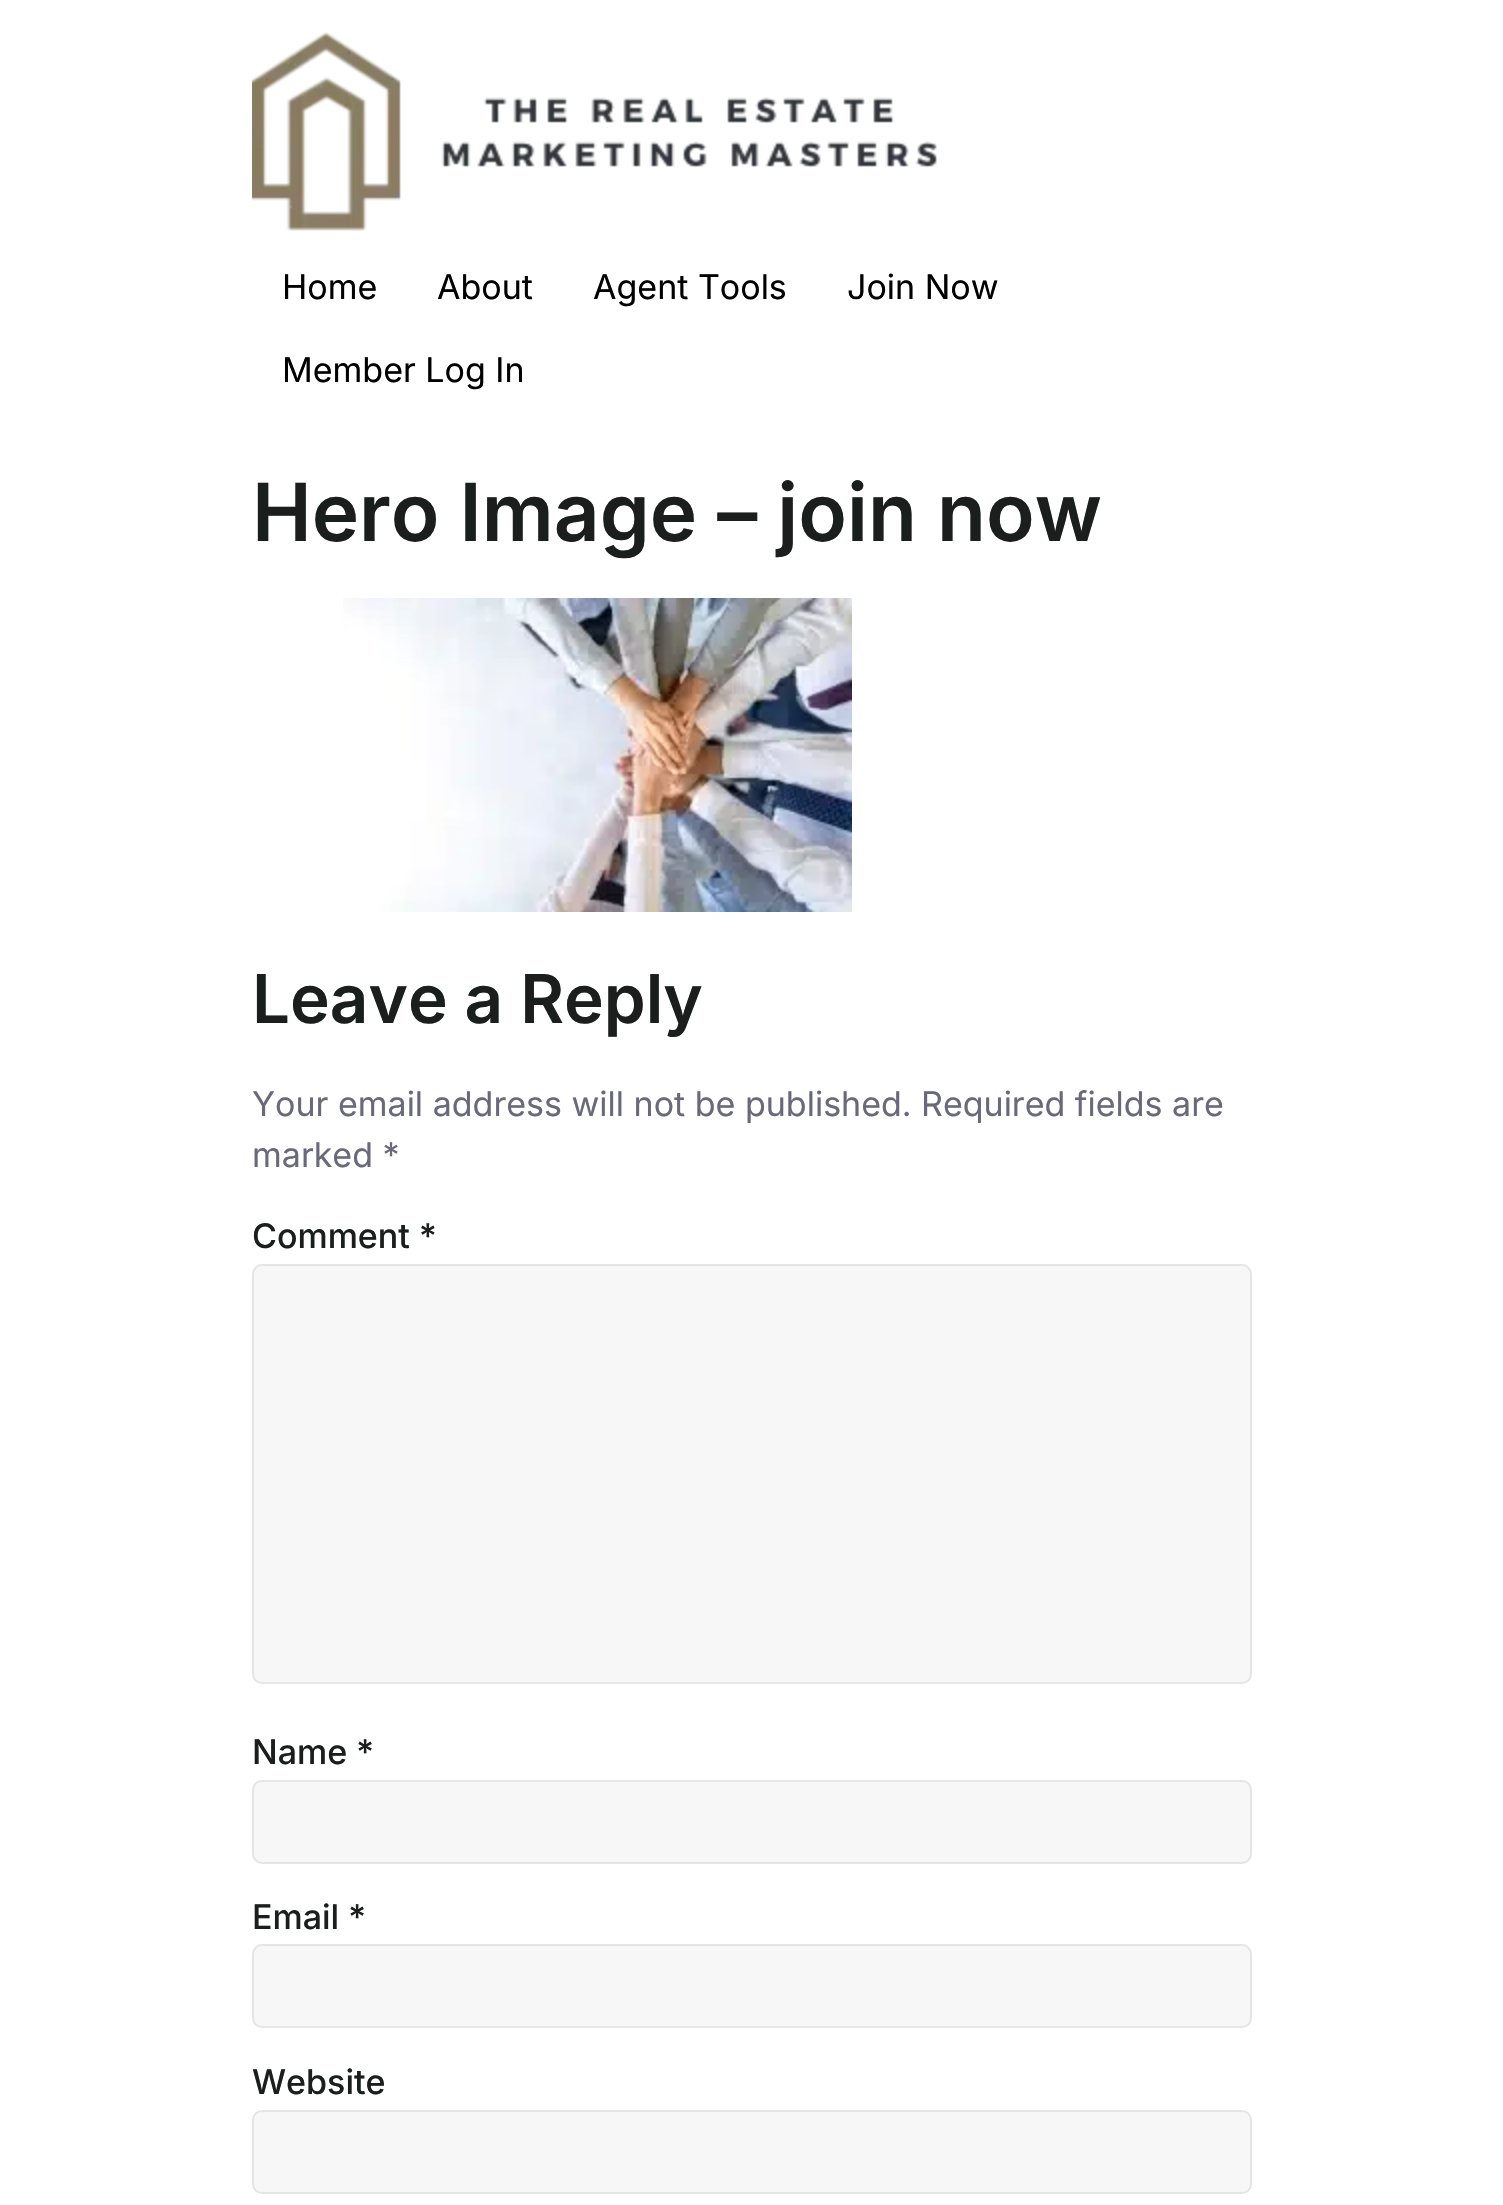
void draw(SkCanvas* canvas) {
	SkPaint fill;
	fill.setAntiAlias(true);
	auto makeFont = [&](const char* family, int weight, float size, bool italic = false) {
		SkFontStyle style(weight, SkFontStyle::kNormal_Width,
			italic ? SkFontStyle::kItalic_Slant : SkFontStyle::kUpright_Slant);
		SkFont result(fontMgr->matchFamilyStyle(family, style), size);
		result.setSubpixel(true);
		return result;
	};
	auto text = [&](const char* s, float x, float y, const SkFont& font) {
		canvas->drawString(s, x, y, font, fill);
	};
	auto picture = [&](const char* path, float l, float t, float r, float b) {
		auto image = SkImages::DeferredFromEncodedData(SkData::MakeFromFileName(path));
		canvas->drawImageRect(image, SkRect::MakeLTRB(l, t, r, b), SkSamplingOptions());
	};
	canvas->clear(0xFFFFFFFF);
	picture("image0.png", 252, 32, 938, 231);
	picture("image1.png", 343, 598, 852, 912);
	fill.setColor(0xFFF7F7F7);
	canvas->drawRoundRect(SkRect::MakeLTRB(253, 1265, 1251, 1683), 9, 9, fill);
	fill.setStyle(SkPaint::kStroke_Style);
	fill.setStrokeWidth(2);
	fill.setColor(0xFFE5E5E5);
	canvas->drawRoundRect(SkRect::MakeLTRB(253, 1265, 1251, 1683), 9, 9, fill);
	fill.setStyle(SkPaint::kFill_Style);
	fill.setColor(0xFFF7F7F7);
	canvas->drawRoundRect(SkRect::MakeLTRB(253, 1781, 1251, 1863), 9, 9, fill);
	fill.setStyle(SkPaint::kStroke_Style);
	fill.setColor(0xFFE5E5E5);
	canvas->drawRoundRect(SkRect::MakeLTRB(253, 1781, 1251, 1863), 9, 9, fill);
	fill.setStyle(SkPaint::kFill_Style);
	fill.setColor(0xFFF7F7F7);
	canvas->drawRoundRect(SkRect::MakeLTRB(253, 1945, 1251, 2027), 9, 9, fill);
	fill.setStyle(SkPaint::kStroke_Style);
	fill.setColor(0xFFE5E5E5);
	canvas->drawRoundRect(SkRect::MakeLTRB(253, 1945, 1251, 2027), 9, 9, fill);
	fill.setStyle(SkPaint::kFill_Style);
	fill.setColor(0xFFF7F7F7);
	canvas->drawRoundRect(SkRect::MakeLTRB(253, 2111, 1251, 2193), 9, 9, fill);
	fill.setStyle(SkPaint::kStroke_Style);
	fill.setColor(0xFFE5E5E5);
	canvas->drawRoundRect(SkRect::MakeLTRB(253, 2111, 1251, 2193), 9, 9, fill);
	auto font1 = makeFont("Inter", 400, 34);
	fill.setStyle(SkPaint::kFill_Style);
	fill.setColor(0xFF000000);
	text("Home", 282, 299, font1);
	text("About", 437, 299, font1);
	text("Agent Tools", 593, 299, font1);
	text("Join Now", 847, 299, font1);
	text("Member Log In", 282, 382, font1);
	auto font2 = makeFont("Inter", 600, 80);
	fill.setColor(0xFF1A1E1C);
	text("Hero Image – join now", 252, 541, font2);
	auto font3 = makeFont("Inter", 600, 67.25f);
	text("Leave a Reply", 252, 1023, font3);
	fill.setColor(0xFF69697B);
	text("Your email address will not be published.", 252, 1116, font1);
	text("Required fields are", 921, 1116, font1);
	text("marked *", 252, 1167, font1);
	auto font4 = makeFont("Inter", 500, 34);
	fill.setColor(0xFF1A1E1C);
	text("Comment *", 252, 1248, font4);
	text("Name *", 252, 1764, font4);
	text("Email *", 252, 1929, font4);
	text("Website", 252, 2094, font4);
}
